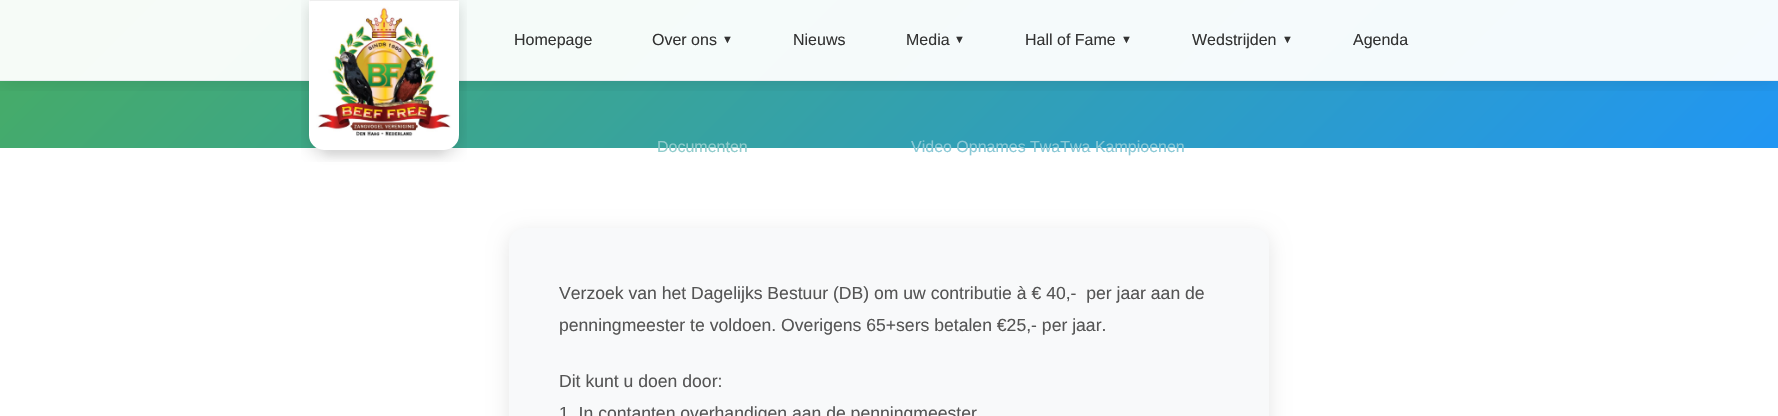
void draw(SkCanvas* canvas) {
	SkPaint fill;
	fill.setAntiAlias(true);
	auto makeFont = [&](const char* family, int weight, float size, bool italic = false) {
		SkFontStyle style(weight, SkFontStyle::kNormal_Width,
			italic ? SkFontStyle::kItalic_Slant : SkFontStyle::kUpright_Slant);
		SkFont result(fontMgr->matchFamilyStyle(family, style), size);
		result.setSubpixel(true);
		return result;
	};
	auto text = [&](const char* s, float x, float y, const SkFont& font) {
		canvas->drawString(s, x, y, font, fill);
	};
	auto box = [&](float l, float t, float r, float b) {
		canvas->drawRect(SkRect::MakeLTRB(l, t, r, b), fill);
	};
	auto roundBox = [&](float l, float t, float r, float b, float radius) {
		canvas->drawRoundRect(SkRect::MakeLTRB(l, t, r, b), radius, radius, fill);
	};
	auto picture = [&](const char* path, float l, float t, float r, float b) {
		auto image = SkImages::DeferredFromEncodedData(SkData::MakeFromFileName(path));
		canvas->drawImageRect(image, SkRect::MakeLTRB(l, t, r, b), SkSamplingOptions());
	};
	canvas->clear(0xFFFFFFFF);
	{
		const SkColor colors[] = {0xFF4CAF50, 0xFF2196F3};
		const float stops[] = {0, 1};
		const SkPoint ends[] = {{344, -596}, {1434, 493}};
		fill.setShader(SkGradientShader::MakeLinear(ends, colors, stops, 2, SkTileMode::kClamp));
		fill.setAlpha(255);
	}
	box(0, 81, 1778, 148);
	{
		const SkColor colors[] = {0xFFF6FBF6, 0xFFF4FAFE};
		const float stops[] = {0, 1};
		const SkPoint ends[] = {{344, -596}, {1434, 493}};
		fill.setShader(SkGradientShader::MakeLinear(ends, colors, stops, 2, SkTileMode::kClamp));
		fill.setAlpha(255);
	}
	box(0, 0, 1778, 80);
	canvas->save();
	canvas->clipRect(SkRect::MakeLTRB(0, 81, 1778, 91));
	fill.setShader(nullptr);
	fill.setColor(0x1A000000);
	fill.setMaskFilter(SkMaskFilter::MakeBlur(kNormal_SkBlurStyle, 10));
	canvas->drawRect(SkRect::MakeLTRB(0, 2, 1778, 83), fill);
	fill.setMaskFilter(nullptr);
	canvas->restore();
	fill.setColor(0xFFE9ECEF);
	box(0, 80, 1778, 81);
	fill.setColor(0x14000000);
	fill.setMaskFilter(SkMaskFilter::MakeBlur(kNormal_SkBlurStyle, 4));
	canvas->drawRoundRect(SkRect::MakeLTRB(324, 147, 444, 155), 4, 4, fill);
	fill.setMaskFilter(nullptr);
	picture("image0.png", 301, 0, 467, 162);
	fill.setColor(0x1A000000);
	fill.setMaskFilter(SkMaskFilter::MakeBlur(kNormal_SkBlurStyle, 10));
	canvas->drawRoundRect(SkRect::MakeLTRB(509, 233, 1269, 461), 15, 15, fill);
	fill.setMaskFilter(nullptr);
	fill.setColor(0xFFF8F9FA);
	roundBox(509, 228, 1269, 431, 15);
	auto font1 = makeFont("Liberation Sans", 400, 16);
	fill.setColor(0xFF333333);
	text("Homepage", 514, 45, font1);
	text("Over ons", 652, 45, font1);
	auto font2 = makeFont("Liberation Sans", 400, 11);
	text("▼", 722, 43, font2);
	fill.setColor(0xFF90CCCC);
	text("Documenten", 657, 152, font1);
	fill.setColor(0xFF333333);
	text("Nieuws", 793, 45, font1);
	text("Media", 906, 45, font1);
	text("▼", 954, 43, font2);
	fill.setColor(0xFF8BC9D6);
	text("Video Opnames", 911, 152, font1);
	fill.setColor(0xFF333333);
	text("Hall of Fame", 1025, 45, font1);
	text("▼", 1121, 43, font2);
	fill.setColor(0xFF8BC9D6);
	text("TwaTwa Kampioenen", 1030, 152, font1);
	fill.setColor(0xFF333333);
	text("Wedstrijden", 1192, 45, font1);
	text("▼", 1282, 43, font2);
	text("Agenda", 1353, 45, font1);
	auto font3 = makeFont("Liberation Sans", 400, 17.6f);
	fill.setColor(0xFF555555);
	text("Verzoek van het Dagelijks Bestuur (DB) om uw contributie à € 40,-  per jaar aan de", 559, 299, font3);
	text("penningmeester te voldoen. Overigens 65+sers betalen €25,- per jaar.", 559, 331, font3);
	text("Dit kunt u doen door:", 559, 387, font3);
	text("1. In contanten overhandigen aan de penningmeester", 559, 419, font3);
}
